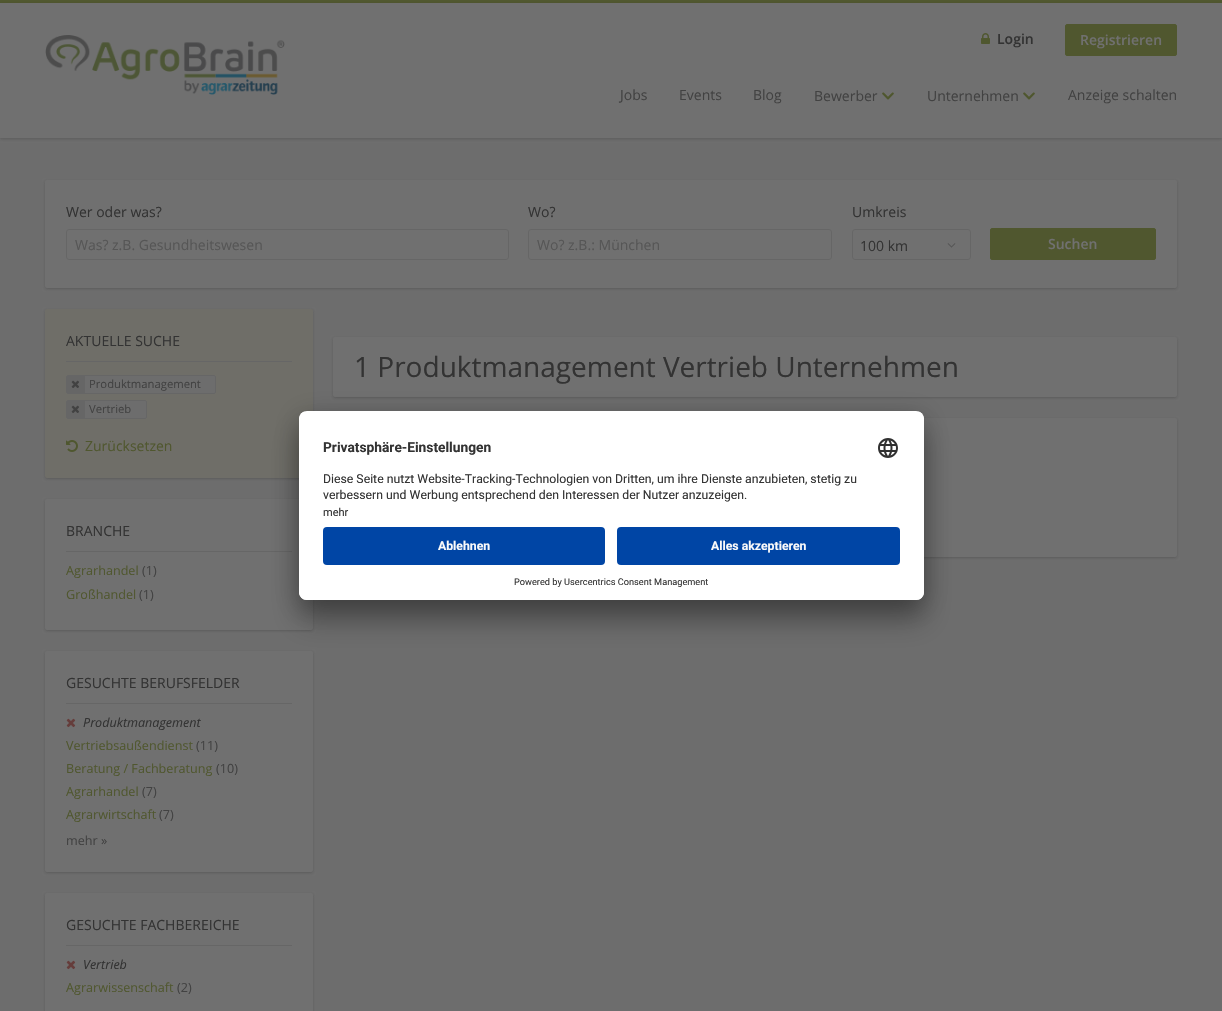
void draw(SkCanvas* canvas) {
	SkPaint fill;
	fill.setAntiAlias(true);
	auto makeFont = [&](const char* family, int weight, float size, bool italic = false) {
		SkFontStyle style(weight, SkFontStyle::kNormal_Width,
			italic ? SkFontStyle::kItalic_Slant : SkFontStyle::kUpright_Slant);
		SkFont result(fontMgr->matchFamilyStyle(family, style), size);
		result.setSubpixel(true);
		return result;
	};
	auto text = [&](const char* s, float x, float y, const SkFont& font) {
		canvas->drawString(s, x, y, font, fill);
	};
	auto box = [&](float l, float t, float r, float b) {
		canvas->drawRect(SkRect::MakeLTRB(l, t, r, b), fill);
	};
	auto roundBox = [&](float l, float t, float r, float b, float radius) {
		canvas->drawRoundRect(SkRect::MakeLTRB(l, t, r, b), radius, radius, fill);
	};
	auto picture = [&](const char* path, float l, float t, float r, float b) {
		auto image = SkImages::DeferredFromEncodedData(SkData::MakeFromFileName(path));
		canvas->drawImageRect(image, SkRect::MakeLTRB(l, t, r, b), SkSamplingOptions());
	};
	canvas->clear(0xFF6D6D6D);
	fill.setColor(0xFF50572F);
	box(0, 0, 1222, 3);
	fill.setColor(0x40242424);
	fill.setMaskFilter(SkMaskFilter::MakeBlur(kNormal_SkBlurStyle, 1.5f));
	canvas->drawRect(SkRect::MakeLTRB(0, 4, 1222, 139), fill);
	fill.setMaskFilter(nullptr);
	fill.setColor(0xFF707070);
	box(0, 3, 1222, 138);
	picture("image0.png", 45, 35, 285, 95);
	picture("image1.png", 981, 33, 990, 44);
	fill.setColor(0xFF50572F);
	canvas->drawRoundRect(SkRect::MakeLTRB(1065.5f, 24.5f, 1176.5f, 55.5f), 1.5f, 1.5f, fill);
	fill.setStyle(SkPaint::kStroke_Style);
	fill.setStrokeWidth(1);
	canvas->drawRoundRect(SkRect::MakeLTRB(1065.5f, 24.5f, 1176.5f, 55.5f), 1.5f, 1.5f, fill);
	picture("image2.png", 882, 92, 894, 100);
	picture("image2.png", 1023, 92, 1035, 100);
	fill.setStyle(SkPaint::kFill_Style);
	fill.setColor(0x40242424);
	fill.setMaskFilter(SkMaskFilter::MakeBlur(kNormal_SkBlurStyle, 1.5f));
	canvas->drawRoundRect(SkRect::MakeLTRB(45, 181, 1177, 289), 2, 2, fill);
	fill.setMaskFilter(nullptr);
	fill.setColor(0xFF707070);
	roundBox(45, 180, 1177, 288, 2);
	fill.setStyle(SkPaint::kStroke_Style);
	fill.setColor(0xFF666666);
	canvas->drawRoundRect(SkRect::MakeLTRB(66.5f, 229.5f, 508.5f, 259.5f), 2.5f, 2.5f, fill);
	canvas->drawRoundRect(SkRect::MakeLTRB(528.5f, 229.5f, 831.5f, 259.5f), 2.5f, 2.5f, fill);
	canvas->drawRoundRect(SkRect::MakeLTRB(852.5f, 229.5f, 970.5f, 259.5f), 2.5f, 2.5f, fill);
	picture("image3.png", 947, 243, 956, 248);
	fill.setStyle(SkPaint::kFill_Style);
	fill.setColor(0xFF50572F);
	canvas->drawRoundRect(SkRect::MakeLTRB(990.5f, 228.5f, 1155.5f, 259.5f), 1.5f, 1.5f, fill);
	fill.setStyle(SkPaint::kStroke_Style);
	canvas->drawRoundRect(SkRect::MakeLTRB(990.5f, 228.5f, 1155.5f, 259.5f), 1.5f, 1.5f, fill);
	fill.setStyle(SkPaint::kFill_Style);
	fill.setColor(0x40242424);
	fill.setMaskFilter(SkMaskFilter::MakeBlur(kNormal_SkBlurStyle, 1.5f));
	canvas->drawRoundRect(SkRect::MakeLTRB(45, 310, 313, 479), 2, 2, fill);
	fill.setMaskFilter(nullptr);
	fill.setColor(0xFF6F6E68);
	roundBox(45, 309, 313, 478, 2);
	fill.setColor(0xFF666666);
	box(66, 361, 292, 362);
	fill.setColor(0xFF6D6D6D);
	canvas->drawRoundRect(SkRect::MakeLTRB(66.5f, 375.5f, 215.5f, 393.5f), 1.5f, 1.5f, fill);
	fill.setStyle(SkPaint::kStroke_Style);
	fill.setColor(0xFF666666);
	canvas->drawRoundRect(SkRect::MakeLTRB(66.5f, 375.5f, 215.5f, 393.5f), 1.5f, 1.5f, fill);
	fill.setStyle(SkPaint::kFill_Style);
	box(67, 376, 85, 393);
	picture("image4.png", 71, 380, 79, 388);
	fill.setColor(0xFF6D6D6D);
	canvas->drawRoundRect(SkRect::MakeLTRB(66.5f, 400.5f, 146.5f, 418.5f), 1.5f, 1.5f, fill);
	fill.setStyle(SkPaint::kStroke_Style);
	fill.setColor(0xFF666666);
	canvas->drawRoundRect(SkRect::MakeLTRB(66.5f, 400.5f, 146.5f, 418.5f), 1.5f, 1.5f, fill);
	fill.setStyle(SkPaint::kFill_Style);
	box(67, 401, 85, 418);
	picture("image4.png", 71, 405, 79, 413);
	picture("image5.png", 66, 440, 78, 452);
	fill.setColor(0x40242424);
	fill.setMaskFilter(SkMaskFilter::MakeBlur(kNormal_SkBlurStyle, 1.5f));
	canvas->drawRoundRect(SkRect::MakeLTRB(45, 500, 313, 631), 2, 2, fill);
	fill.setMaskFilter(nullptr);
	fill.setColor(0xFF707070);
	roundBox(45, 499, 313, 630, 2);
	fill.setColor(0xFF666666);
	box(66, 551, 292, 552);
	fill.setColor(0x40242424);
	fill.setMaskFilter(SkMaskFilter::MakeBlur(kNormal_SkBlurStyle, 1.5f));
	canvas->drawRoundRect(SkRect::MakeLTRB(45, 652, 313, 873), 2, 2, fill);
	fill.setMaskFilter(nullptr);
	fill.setColor(0xFF707070);
	roundBox(45, 651, 313, 872, 2);
	fill.setColor(0xFF666666);
	box(66, 703, 292, 704);
	picture("image6.png", 66, 718, 76, 728);
	fill.setColor(0x40242424);
	fill.setMaskFilter(SkMaskFilter::MakeBlur(kNormal_SkBlurStyle, 1.5f));
	canvas->drawRoundRect(SkRect::MakeLTRB(45, 894, 313, 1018), 2, 2, fill);
	fill.setMaskFilter(nullptr);
	fill.setColor(0xFF707070);
	roundBox(45, 893, 313, 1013, 2);
	fill.setColor(0xFF666666);
	box(66, 945, 292, 946);
	picture("image6.png", 66, 960, 76, 970);
	fill.setColor(0x40242424);
	fill.setMaskFilter(SkMaskFilter::MakeBlur(kNormal_SkBlurStyle, 1.5f));
	canvas->drawRoundRect(SkRect::MakeLTRB(333, 338, 1177, 398), 2, 2, fill);
	fill.setMaskFilter(nullptr);
	fill.setColor(0xFF707070);
	roundBox(333, 337, 1177, 397, 2);
	fill.setColor(0x40242424);
	fill.setMaskFilter(SkMaskFilter::MakeBlur(kNormal_SkBlurStyle, 1.5f));
	canvas->drawRoundRect(SkRect::MakeLTRB(333, 419, 1177, 558), 2, 2, fill);
	fill.setMaskFilter(nullptr);
	fill.setColor(0xFF707070);
	roundBox(333, 418, 1177, 557, 2);
	fill.setColor(0x4D000000);
	fill.setMaskFilter(SkMaskFilter::MakeBlur(kNormal_SkBlurStyle, 14));
	canvas->drawRoundRect(SkRect::MakeLTRB(299, 431, 924, 620), 8, 8, fill);
	fill.setMaskFilter(nullptr);
	fill.setColor(0x38000000);
	fill.setMaskFilter(SkMaskFilter::MakeBlur(kNormal_SkBlurStyle, 13));
	canvas->drawRoundRect(SkRect::MakeLTRB(299, 416, 924, 605), 8, 8, fill);
	fill.setMaskFilter(nullptr);
	fill.setColor(0xFFFFFFFF);
	roundBox(299, 411, 924, 600, 8);
	canvas->save();
	canvas->clipPath(SkPathBuilder().moveTo(307, 411).lineTo(916, 411).cubicTo(920.5f, 411, 924, 414.5f, 924, 419).lineTo(924, 592).cubicTo(924, 596.5f, 920.5f, 600, 916, 600).lineTo(307, 600).cubicTo(302.5f, 600, 299, 596.5f, 299, 592).lineTo(299, 419).cubicTo(299, 414.5f, 302.5f, 411, 307, 411).close().detach(), true);
	canvas->clipPath(SkPathBuilder().moveTo(307, 411).lineTo(916, 411).cubicTo(920.5f, 411, 924, 414.5f, 924, 419).lineTo(924, 519).lineTo(299, 519).lineTo(299, 419).cubicTo(299, 414.5f, 302.5f, 411, 307, 411).close().detach(), true);
	box(299, 412, 924, 519);
	canvas->restore();
	picture("image7.png", 878, 438, 898, 458);
	canvas->drawPath(SkPathBuilder().moveTo(299, 519).lineTo(924, 519).lineTo(924, 592).cubicTo(924, 596.5f, 920.5f, 600, 916, 600).lineTo(307, 600).cubicTo(302.5f, 600, 299, 596.5f, 299, 592).close().detach(), fill);
	fill.setColor(0xFF0045A5);
	roundBox(323, 527, 605, 565, 4);
	roundBox(617, 527, 900, 565, 4);
	auto font1 = makeFont("Open Sans", 600, 14);
	fill.setColor(0xFF333333);
	text("Login", 997, 44, font1);
	fill.setColor(0xFF707070);
	text("Registrieren", 1080, 45, font1);
	auto font2 = makeFont("Open Sans", 400, 14);
	fill.setColor(0xFF424242);
	text("Jobs", 620, 100, font2);
	text("Events", 679, 100, font2);
	text("Blog", 753, 100, font2);
	text("Bewerber", 814, 101, font2);
	text("Unternehmen", 927, 101, font2);
	text("Anzeige schalten", 1068, 100, font2);
	fill.setColor(0xFF333333);
	text("Wer oder was?", 66, 217, font2);
	fill.setColor(0xFF565656);
	text("Was? z.B. Gesundheitswesen", 75, 250, font2);
	fill.setColor(0xFF333333);
	text("Wo?", 528, 217, font2);
	fill.setColor(0xFF565656);
	text("Wo? z.B.: München", 537, 250, font2);
	fill.setColor(0xFF333333);
	text("Umkreis", 852, 217, font2);
	text("100 km", 860, 251, font2);
	fill.setColor(0xFF707070);
	text("Suchen", 1048, 249, font1);
	fill.setColor(0xFF333333);
	text("AKTUELLE SUCHE", 66, 346, font2);
	auto font3 = makeFont("Open Sans", 400, 11.25f);
	fill.setColor(0xFF424242);
	text("Produktmanagement", 89, 388, font3);
	text("Vertrieb", 89, 413, font3);
	fill.setColor(0xFF50572F);
	text("Zurücksetzen", 85, 451, font2);
	fill.setColor(0xFF333333);
	text("BRANCHE", 66, 536, font2);
	auto font4 = makeFont("Open Sans", 400, 12.6f);
	fill.setColor(0xFF50572F);
	text("Agrarhandel", 66, 575, font4);
	fill.setColor(0xFF424242);
	text("(1)", 142, 575, font4);
	fill.setColor(0xFF50572F);
	text("Großhandel", 66, 599, font4);
	fill.setColor(0xFF424242);
	text("(1)", 139, 599, font4);
	fill.setColor(0xFF333333);
	text("GESUCHTE BERUFSFELDER", 66, 688, font2);
	auto font5 = makeFont("Open Sans", 400, 12.6f, true);
	text("Produktmanagement", 83, 727, font5);
	fill.setColor(0xFF50572F);
	text("Vertriebsaußendienst", 66, 750, font4);
	fill.setColor(0xFF424242);
	text("(11)", 196, 750, font4);
	fill.setColor(0xFF50572F);
	text("Beratung / Fachberatung", 66, 773, font4);
	fill.setColor(0xFF424242);
	text("(10)", 216, 773, font4);
	fill.setColor(0xFF50572F);
	text("Agrarhandel", 66, 796, font4);
	fill.setColor(0xFF424242);
	text("(7)", 142, 796, font4);
	fill.setColor(0xFF50572F);
	text("Agrarwirtschaft", 66, 819, font4);
	fill.setColor(0xFF424242);
	text("(7)", 159, 819, font4);
	text("mehr »", 66, 845, font4);
	fill.setColor(0xFF333333);
	text("GESUCHTE FACHBEREICHE", 66, 930, font2);
	text("Vertrieb", 83, 969, font5);
	fill.setColor(0xFF50572F);
	text("Agrarwissenschaft", 66, 992, font4);
	fill.setColor(0xFF424242);
	text("(2)", 177, 992, font4);
	auto font6 = makeFont("Open Sans", 400, 28);
	fill.setColor(0xFF333333);
	text("1 Produktmanagement Vertrieb Unternehmen", 354, 377, font6);
	auto font7 = makeFont("Roboto", 700, 13.75f);
	text("Privatsphäre-Einstellungen", 323, 452, font7);
	auto font8 = makeFont("Roboto", 400, 12.25f);
	text("Diese Seite nutzt Website-Tracking-Technologien von Dritten, um ihre Dienste anzubieten, stetig zu", 323, 483, font8);
	text("verbessern und Werbung entsprechend den Interessen der Nutzer anzuzeigen.", 323, 499, font8);
	auto font9 = makeFont("Roboto", 400, 11);
	text("mehr", 323, 516, font9);
	auto font10 = makeFont("Roboto", 700, 12.25f);
	fill.setColor(0xFFFAFAFA);
	text("Ablehnen", 438, 550, font10);
	text("Alles akzeptieren", 711, 550, font10);
	auto font11 = makeFont("Roboto", 400, 9.2f);
	fill.setColor(0xFF333333);
	text("Powered by Usercentrics Consent Management", 514, 585, font11);
}
